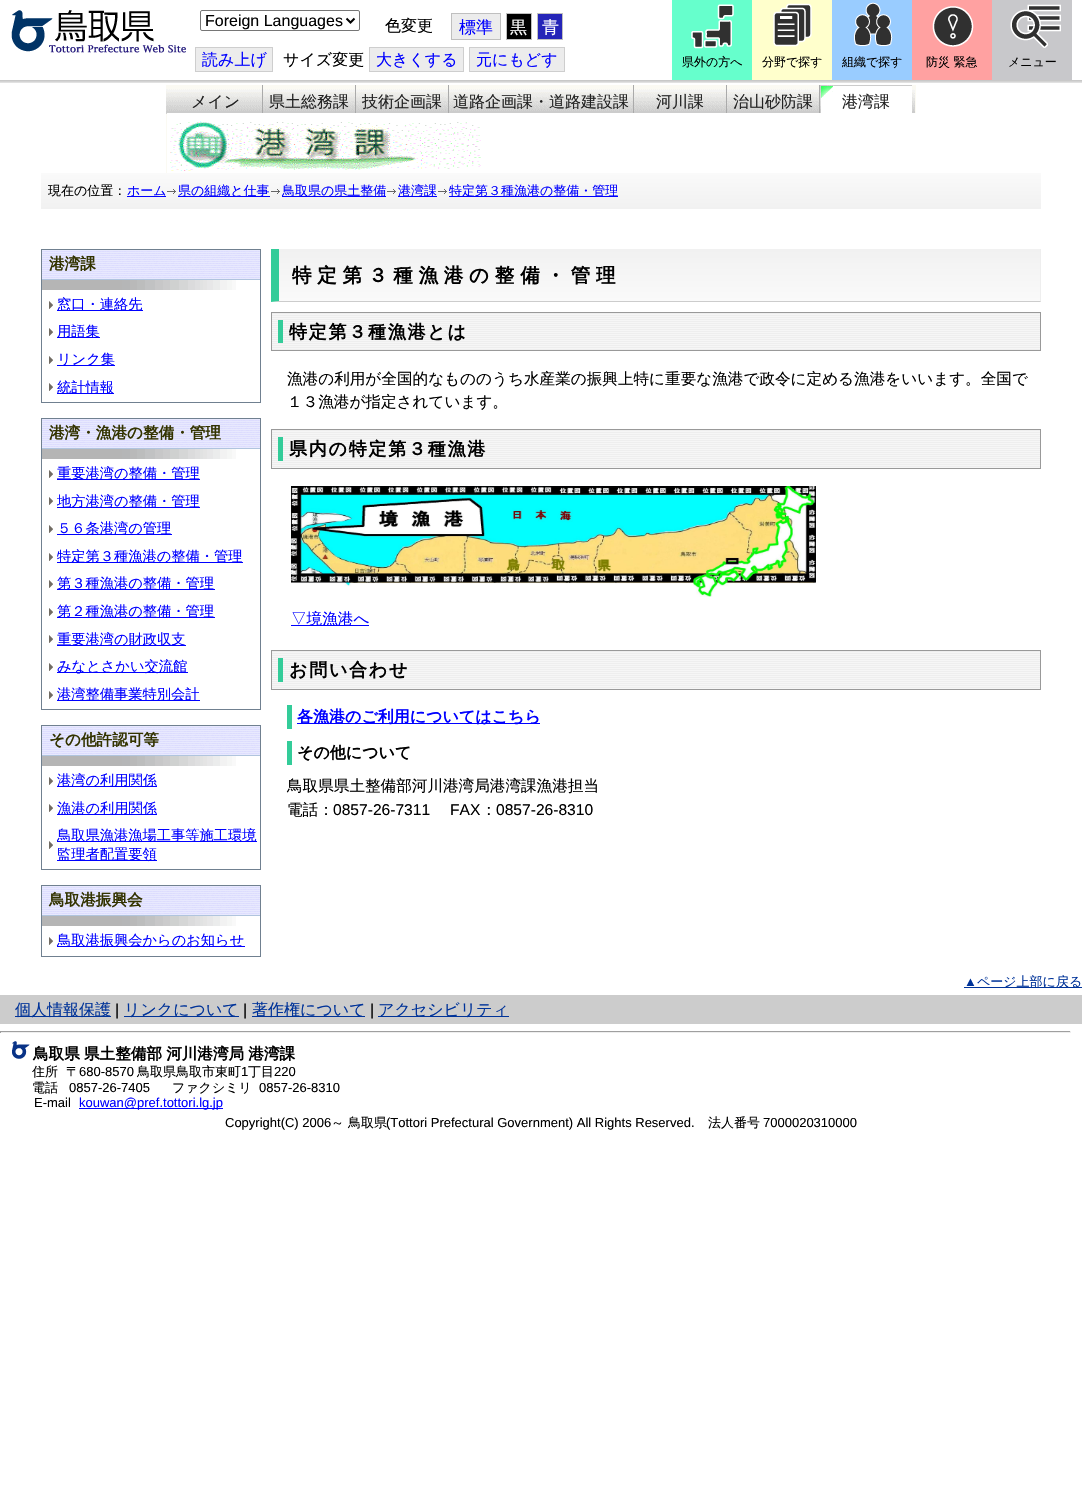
void draw(SkCanvas* canvas) {
	SkPaint fill;
	fill.setAntiAlias(true);
	auto makeFont = [&](const char* family, int weight, float size, bool italic = false) {
		SkFontStyle style(weight, SkFontStyle::kNormal_Width,
			italic ? SkFontStyle::kItalic_Slant : SkFontStyle::kUpright_Slant);
		SkFont result(fontMgr->matchFamilyStyle(family, style), size);
		result.setSubpixel(true);
		return result;
	};
	auto text = [&](const char* s, float x, float y, const SkFont& font) {
		canvas->drawString(s, x, y, font, fill);
	};
	auto spacedText = [&](const char* s, float x, float y, const SkFont& font, const SkPaint& ink, float letter, float word) {
		std::vector<SkGlyphID> glyphs(font.countText(s, strlen(s), SkTextEncoding::kUTF8));
		std::vector<float> xs(glyphs.size());
		font.textToGlyphs(s, strlen(s), SkTextEncoding::kUTF8, glyphs);
		font.getXPos(glyphs, xs, x);
		float extra = 0;
		for (size_t i = 0; i < glyphs.size(); i++) {
			xs[i] += extra;
			extra += letter + word * (glyphs[i] == font.unicharToGlyph(' '));
		}
		canvas->drawTextBlob(SkTextBlob::MakeFromPosHGlyphs(glyphs, xs, y, font), 0, 0, ink);
	};
	auto box = [&](float l, float t, float r, float b) {
		canvas->drawRect(SkRect::MakeLTRB(l, t, r, b), fill);
	};
	auto picture = [&](const char* path, float l, float t, float r, float b) {
		auto image = SkImages::DeferredFromEncodedData(SkData::MakeFromFileName(path));
		canvas->drawImageRect(image, SkRect::MakeLTRB(l, t, r, b), SkSamplingOptions());
	};
	canvas->clear(0xFFFFFFFF);
	picture("image6.png", 166, 85, 916, 173);
	fill.setColor(0xFFAAAAAA);
	box(262, 85, 263, 113);
	box(355, 85, 356, 113);
	box(448, 85, 449, 113);
	box(633, 85, 634, 113);
	box(726, 85, 727, 113);
	box(819, 85, 820, 113);
	picture("image7.png", 820, 85, 912, 113);
	canvas->save();
	canvas->clipRect(SkRect::MakeLTRB(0, 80, 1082, 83));
	fill.setColor(0x1A000000);
	fill.setMaskFilter(SkMaskFilter::MakeBlur(kNormal_SkBlurStyle, 2.5f));
	canvas->drawRect(SkRect::MakeLTRB(-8, 1, 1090, 81), fill);
	fill.setMaskFilter(nullptr);
	fill.setMaskFilter(SkMaskFilter::MakeBlur(kNormal_SkBlurStyle, 2.5f));
	canvas->drawRect(SkRect::MakeLTRB(-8, 1, 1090, 81), fill);
	fill.setMaskFilter(nullptr);
	fill.setMaskFilter(SkMaskFilter::MakeBlur(kNormal_SkBlurStyle, 2.5f));
	canvas->drawRect(SkRect::MakeLTRB(-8, 1, 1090, 81), fill);
	fill.setMaskFilter(nullptr);
	fill.setMaskFilter(SkMaskFilter::MakeBlur(kNormal_SkBlurStyle, 2.5f));
	canvas->drawRect(SkRect::MakeLTRB(-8, 1, 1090, 81), fill);
	fill.setMaskFilter(nullptr);
	canvas->restore();
	picture("image0.png", 11, 10, 186, 53);
	fill.setStyle(SkPaint::kStroke_Style);
	fill.setStrokeWidth(1);
	fill.setColor(0xFF767676);
	canvas->drawRoundRect(SkRect::MakeLTRB(200.5f, 10.5f, 359.5f, 30.5f), 1.5f, 1.5f, fill);
	fill.setStrokeWidth(2);
	fill.setColor(0xFF000000);
	canvas->drawPath(SkPathBuilder().moveTo(346.5f, 18.5f).lineTo(350.5f, 22.5f).lineTo(354.5f, 18.5f).detach(), fill);
	fill.setStyle(SkPaint::kFill_Style);
	fill.setColor(0xFFECECEC);
	canvas->drawRect(SkRect::MakeLTRB(451.5f, 13.5f, 500.5f, 39.5f), fill);
	fill.setStyle(SkPaint::kStroke_Style);
	fill.setStrokeWidth(1);
	fill.setColor(0xFFBFBFBF);
	canvas->drawRect(SkRect::MakeLTRB(451.5f, 13.5f, 500.5f, 39.5f), fill);
	fill.setStyle(SkPaint::kFill_Style);
	fill.setColor(0xFF000000);
	canvas->drawRect(SkRect::MakeLTRB(506.5f, 13.5f, 531.5f, 39.5f), fill);
	fill.setStyle(SkPaint::kStroke_Style);
	fill.setColor(0xFFBFBFBF);
	canvas->drawRect(SkRect::MakeLTRB(506.5f, 13.5f, 531.5f, 39.5f), fill);
	fill.setStyle(SkPaint::kFill_Style);
	fill.setColor(0xFF2525B8);
	canvas->drawRect(SkRect::MakeLTRB(537.5f, 13.5f, 562.5f, 39.5f), fill);
	fill.setStyle(SkPaint::kStroke_Style);
	fill.setColor(0xFFBFBFBF);
	canvas->drawRect(SkRect::MakeLTRB(537.5f, 13.5f, 562.5f, 39.5f), fill);
	fill.setStyle(SkPaint::kFill_Style);
	fill.setColor(0xFFECECEC);
	canvas->drawRect(SkRect::MakeLTRB(195.5f, 47.5f, 272.5f, 71.5f), fill);
	fill.setStyle(SkPaint::kStroke_Style);
	fill.setColor(0xFFCECECE);
	canvas->drawRect(SkRect::MakeLTRB(195.5f, 47.5f, 272.5f, 71.5f), fill);
	fill.setStyle(SkPaint::kFill_Style);
	fill.setColor(0xFFECECEC);
	box(370, 48, 463, 71);
	fill.setColor(0xFFCECECE);
	box(369, 47, 464, 48);
	box(369, 71, 392, 72);
	box(369, 47, 370, 72);
	box(463, 47, 464, 72);
	box(392, 71, 464, 72);
	fill.setColor(0xFFECECEC);
	box(470, 48, 564, 71);
	fill.setColor(0xFFCECECE);
	box(469, 47, 565, 48);
	box(469, 71, 492, 72);
	box(469, 47, 470, 72);
	box(564, 47, 565, 72);
	box(492, 71, 565, 72);
	fill.setColor(0xFF66FFCC);
	box(672, 0, 752, 80);
	picture("image1.png", 691, 4, 734, 49);
	fill.setColor(0xFFFFFFCC);
	box(752, 0, 832, 80);
	picture("image2.png", 773, 3, 812, 47);
	fill.setColor(0xFF99CCFF);
	box(832, 0, 912, 80);
	picture("image3.png", 854, 2, 893, 46);
	fill.setColor(0xFFFFA1A1);
	box(912, 0, 992, 80);
	picture("image4.png", 932, 6, 974, 47);
	fill.setColor(0xFFC8C8CB);
	box(992, 0, 1072, 80);
	picture("image5.png", 1010, 4, 1061, 48);
	picture("image8.png", 167, 113, 916, 173);
	{
		const SkColor colors[] = {0xFFFAFAFA, 0xFFF1F1F1};
		const float stops[] = {0, 1};
		const SkPoint ends[] = {{541, 173}, {541, 209}};
		fill.setShader(SkGradientShader::MakeLinear(ends, colors, stops, 2, SkTileMode::kClamp));
		fill.setAlpha(255);
	}
	box(41, 173, 1041, 209);
	fill.setShader(nullptr);
	fill.setColor(0xFF0000FF);
	box(127, 196, 166, 197);
	picture("image9.png", 167, 189, 176, 194);
	box(178, 196, 270, 197);
	picture("image9.png", 271, 189, 280, 194);
	box(282, 196, 386, 197);
	picture("image9.png", 387, 189, 396, 194);
	box(398, 196, 437, 197);
	picture("image9.png", 438, 189, 447, 194);
	box(449, 196, 618, 197);
	fill.setStyle(SkPaint::kStroke_Style);
	fill.setColor(0xFF708090);
	canvas->drawRect(SkRect::MakeLTRB(41.5f, 249.5f, 260.5f, 402.5f), fill);
	picture("image10.png", 42, 250, 260, 279);
	fill.setStyle(SkPaint::kFill_Style);
	fill.setColor(0xFFB0C4DE);
	box(42, 279, 260, 280);
	picture("image11.png", 42, 280, 236, 290);
	picture("image12.png", 49, 301, 53, 309);
	fill.setColor(0xFF0000FF);
	box(57, 310, 143, 311);
	picture("image12.png", 49, 328, 53, 336);
	box(57, 337, 100, 338);
	picture("image12.png", 49, 356, 53, 364);
	box(57, 365, 115, 366);
	picture("image12.png", 49, 383, 53, 391);
	box(57, 393, 114, 394);
	fill.setStyle(SkPaint::kStroke_Style);
	fill.setColor(0xFF708090);
	canvas->drawRect(SkRect::MakeLTRB(41.5f, 418.5f, 260.5f, 709.5f), fill);
	picture("image10.png", 42, 419, 260, 448);
	fill.setStyle(SkPaint::kFill_Style);
	fill.setColor(0xFFB0C4DE);
	box(42, 448, 260, 449);
	picture("image11.png", 42, 449, 236, 459);
	picture("image12.png", 49, 470, 53, 478);
	fill.setColor(0xFF0000FF);
	box(57, 479, 200, 480);
	picture("image12.png", 49, 497, 53, 505);
	box(57, 507, 200, 508);
	picture("image12.png", 49, 525, 53, 533);
	box(57, 534, 172, 535);
	picture("image12.png", 49, 553, 53, 561);
	box(57, 562, 243, 563);
	picture("image12.png", 49, 580, 53, 588);
	box(57, 589, 215, 590);
	picture("image12.png", 49, 608, 53, 616);
	box(57, 617, 215, 618);
	picture("image12.png", 49, 635, 53, 643);
	box(57, 645, 186, 646);
	picture("image12.png", 49, 663, 53, 671);
	box(57, 672, 188, 673);
	picture("image12.png", 49, 691, 53, 699);
	box(57, 700, 200, 701);
	fill.setStyle(SkPaint::kStroke_Style);
	fill.setColor(0xFF708090);
	canvas->drawRect(SkRect::MakeLTRB(41.5f, 725.5f, 260.5f, 869.5f), fill);
	picture("image10.png", 42, 726, 260, 755);
	fill.setStyle(SkPaint::kFill_Style);
	fill.setColor(0xFFB0C4DE);
	box(42, 755, 260, 756);
	picture("image11.png", 42, 756, 236, 766);
	picture("image12.png", 49, 777, 53, 785);
	fill.setColor(0xFF0000FF);
	box(57, 786, 157, 787);
	picture("image12.png", 49, 804, 53, 812);
	box(57, 814, 157, 815);
	picture("image12.png", 49, 841, 53, 849);
	box(57, 841, 257, 842);
	box(57, 860, 157, 861);
	fill.setStyle(SkPaint::kStroke_Style);
	fill.setColor(0xFF708090);
	canvas->drawRect(SkRect::MakeLTRB(41.5f, 885.5f, 260.5f, 956.5f), fill);
	picture("image10.png", 42, 886, 260, 915);
	fill.setStyle(SkPaint::kFill_Style);
	fill.setColor(0xFFB0C4DE);
	box(42, 915, 260, 916);
	picture("image11.png", 42, 916, 236, 926);
	picture("image12.png", 49, 937, 53, 945);
	fill.setColor(0xFF0000FF);
	box(57, 946, 245, 947);
	{
		const SkColor colors[] = {0xFFF1F1F1, 0xFFFAFAFA};
		const float stops[] = {0, 1};
		const SkPoint ends[] = {{660, 249}, {660, 301}};
		fill.setShader(SkGradientShader::MakeLinear(ends, colors, stops, 2, SkTileMode::kClamp));
		fill.setAlpha(255);
	}
	box(279, 249, 1040, 301);
	fill.setShader(nullptr);
	fill.setColor(0xFFEEEEEE);
	box(1040, 249, 1041, 302);
	fill.setColor(0xFFCCCCCC);
	canvas->drawPath(SkPathBuilder().moveTo(1041, 302).lineTo(271, 302).lineTo(279, 301).lineTo(1040, 301).close().detach(), fill);
	fill.setColor(0xFF33CC99);
	canvas->drawPath(SkPathBuilder().moveTo(271, 302).lineTo(271, 249).lineTo(279, 249).lineTo(279, 301).close().detach(), fill);
	picture("image13.png", 272, 313, 1040, 350);
	fill.setStyle(SkPaint::kStroke_Style);
	fill.setColor(0xFF999999);
	canvas->drawRect(SkRect::MakeLTRB(271.5f, 312.5f, 1040.5f, 350.5f), fill);
	fill.setStyle(SkPaint::kFill_Style);
	fill.setColor(0xFF33CC99);
	box(278, 320, 283, 343);
	picture("image14.png", 272, 430, 1040, 468);
	fill.setStyle(SkPaint::kStroke_Style);
	fill.setColor(0xFF999999);
	canvas->drawRect(SkRect::MakeLTRB(271.5f, 429.5f, 1040.5f, 468.5f), fill);
	fill.setStyle(SkPaint::kFill_Style);
	fill.setColor(0xFF33CC99);
	box(278, 437, 283, 461);
	picture("image15.png", 291, 486, 816, 597);
	fill.setColor(0xFF0000FF);
	box(291, 625, 369, 626);
	picture("image14.png", 272, 651, 1040, 689);
	fill.setStyle(SkPaint::kStroke_Style);
	fill.setColor(0xFF999999);
	canvas->drawRect(SkRect::MakeLTRB(271.5f, 650.5f, 1040.5f, 689.5f), fill);
	fill.setStyle(SkPaint::kFill_Style);
	fill.setColor(0xFF33CC99);
	box(278, 658, 283, 682);
	box(287, 705, 292, 729);
	fill.setColor(0xFF0000FF);
	box(297, 723, 540, 724);
	fill.setColor(0xFF33CC99);
	box(287, 741, 292, 765);
	fill.setColor(0xFF003399);
	box(964, 987, 1082, 988);
	fill.setColor(0xFFCCCCCC);
	box(0, 995, 1082, 1024);
	fill.setColor(0xFF003399);
	box(15, 1016, 111, 1017);
	box(124, 1016, 239, 1017);
	box(252, 1016, 365, 1017);
	box(378, 1016, 509, 1017);
	fill.setColor(0xFF9F9F9F);
	box(0, 1031, 1071, 1032);
	fill.setColor(0xFFEEEEEE);
	box(1070, 1031, 1071, 1033);
	box(0, 1032, 1071, 1033);
	fill.setColor(0xFF9F9F9F);
	box(0, 1031, 1, 1033);
	picture("image16.png", 12, 1041, 30, 1059);
	fill.setColor(0xFF0000FF);
	box(79, 1108, 223, 1109);
	auto font1 = makeFont("Liberation Sans", 400, 16);
	fill.setColor(0xFF000000);
	text("Foreign Languages", 205, 26, font1);
	auto font2 = makeFont("WenQuanYi Zen Hei", 500, 16);
	text("色変更", 385, 31, font2);
	auto font3 = makeFont("WenQuanYi Zen Hei", 500, 17);
	fill.setColor(0xFF0000FF);
	text("標準", 459, 33, font3);
	fill.setColor(0xFFFFFFFF);
	text("黒", 510, 33, font3);
	text("青", 542, 33, font3);
	fill.setColor(0xFF0000FF);
	text("読み上げ", 202, 65, font2);
	fill.setColor(0xFF000000);
	text("サイズ変更", 283, 65, font2);
	fill.setColor(0xFF0000FF);
	text("大きくする", 376, 65, font2);
	text("元にもどす", 476, 65, font2);
	auto font4 = makeFont("WenQuanYi Zen Hei", 500, 12);
	fill.setColor(0xFF000000);
	text("県外の方へ", 682, 66, font4);
	text("分野で探す", 762, 66, font4);
	text("組織で探す", 842, 66, font4);
	text("防災 緊急", 926, 66, font4);
	text("メニュー", 1008, 66, font4);
	fill.setColor(0xFF222222);
	text("メイン", 191, 107, font2);
	text("県土総務課", 269, 107, font2);
	text("技術企画課", 362, 107, font2);
	text("道路企画課・道路建設課", 453, 107, font2);
	text("河川課", 656, 107, font2);
	text("治山砂防課", 733, 107, font2);
	text("港湾課", 842, 107, font2);
	auto font5 = makeFont("WenQuanYi Zen Hei", 500, 13);
	fill.setColor(0xFF000000);
	text("現在の位置：", 48, 195, font5);
	fill.setColor(0xFF0000FF);
	text("ホーム", 127, 195, font5);
	text("県の組織と仕事", 178, 195, font5);
	text("鳥取県の県土整備", 282, 195, font5);
	text("港湾課", 398, 195, font5);
	text("特定第３種漁港の整備・管理", 449, 195, font5);
	auto font6 = makeFont("WenQuanYi Zen Hei", 700, 15.6f);
	fill.setColor(0xFF333300);
	text("港湾課", 49, 269, font6);
	auto font7 = makeFont("WenQuanYi Zen Hei", 500, 14.25f);
	fill.setColor(0xFF0000FF);
	text("窓口・連絡先", 57, 309, font7);
	text("用語集", 57, 336, font7);
	text("リンク集", 57, 364, font7);
	text("統計情報", 57, 392, font7);
	fill.setColor(0xFF333300);
	text("港湾・漁港の整備・管理", 49, 438, font6);
	fill.setColor(0xFF0000FF);
	text("重要港湾の整備・管理", 57, 478, font7);
	text("地方港湾の整備・管理", 57, 506, font7);
	text("５６条港湾の管理", 57, 533, font7);
	text("特定第３種漁港の整備・管理", 57, 561, font7);
	text("第３種漁港の整備・管理", 57, 588, font7);
	text("第２種漁港の整備・管理", 57, 616, font7);
	text("重要港湾の財政収支", 57, 644, font7);
	text("みなとさかい交流館", 57, 671, font7);
	text("港湾整備事業特別会計", 57, 699, font7);
	fill.setColor(0xFF333300);
	text("その他許認可等", 49, 745, font6);
	fill.setColor(0xFF0000FF);
	text("港湾の利用関係", 57, 785, font7);
	text("漁港の利用関係", 57, 813, font7);
	text("鳥取県漁港漁場工事等施工環境", 57, 840, font7);
	text("監理者配置要領", 57, 859, font7);
	fill.setColor(0xFF333300);
	text("鳥取港振興会", 49, 905, font6);
	fill.setColor(0xFF0000FF);
	text("鳥取港振興会からのお知らせ", 57, 945, font7);
	auto font8 = makeFont("WenQuanYi Zen Hei", 700, 19.5f);
	fill.setColor(0xFF000000);
	spacedText("特定第３種漁港の整備・管理", 292, 282, font8, fill, 5.8f, 0);
	auto font9 = makeFont("WenQuanYi Zen Hei", 700, 18);
	spacedText("特定第３種漁港とは", 289, 338, font9, fill, 1.75f, 0);
	auto font10 = makeFont("WenQuanYi Zen Hei", 500, 15.6f);
	text("漁港の利用が全国的なもののうち水産業の振興上特に重要な漁港で政令に定める漁港をいいます。全国で", 287, 384, font10);
	text("１３漁港が指定されています。", 287, 407, font10);
	spacedText("県内の特定第３種漁港", 289, 455, font9, fill, 1.75f, 0);
	fill.setColor(0xFF0000FF);
	text("▽境漁港へ", 291, 624, font10);
	fill.setColor(0xFF000000);
	spacedText("お問い合わせ", 289, 676, font9, fill, 1.75f, 0);
	auto font11 = makeFont("WenQuanYi Zen Hei", 700, 16);
	fill.setColor(0xFF0000FF);
	text("各漁港のご利用についてはこちら", 297, 722, font11);
	fill.setColor(0xFF000000);
	text("その他について", 297, 758, font11);
	text("鳥取県県土整備部河川港湾局港湾課漁港担当", 287, 791, font10);
	text("電話：", 287, 815, font10);
	auto font12 = makeFont("Liberation Sans", 400, 15.6f);
	text("0857-26-7311", 333, 815, font12);
	text("FAX", 450, 815, font12);
	text("：", 481, 815, font10);
	text("0857-26-8310", 496, 815, font12);
	auto font13 = makeFont("Liberation Sans", 400, 13);
	fill.setColor(0xFF003399);
	text("▲", 964, 986, font13);
	text("ページ上部に戻る", 977, 986, font5);
	text("個人情報保護", 15, 1015, font2);
	fill.setColor(0xFF000000);
	text("|", 115, 1015, font1);
	fill.setColor(0xFF003399);
	text("リンクについて", 124, 1015, font2);
	fill.setColor(0xFF000000);
	text("|", 243, 1015, font1);
	fill.setColor(0xFF003399);
	text("著作権について", 252, 1015, font2);
	fill.setColor(0xFF000000);
	text("|", 370, 1015, font1);
	fill.setColor(0xFF003399);
	text("アクセシビリティ", 378, 1015, font2);
	fill.setColor(0xFF000000);
	spacedText("鳥取県 県土整備部 河川港湾局 港湾課", 33, 1059, font6, fill, 0, -0.5f);
	text("住所", 32, 1076, font5);
	text("〒", 66, 1076, font5);
	text("680-8570", 79, 1076, font13);
	text("鳥取県鳥取市東町", 137, 1076, font5);
	text("1", 241, 1076, font13);
	text("丁目", 248, 1076, font5);
	text("220", 274, 1076, font13);
	text("電話", 32, 1092, font5);
	text("0857-26-7405", 69, 1092, font13);
	text("ファクシミリ", 172, 1092, font5);
	text("0857-26-8310", 259, 1092, font13);
	text("E-mail", 34, 1107, font13);
	fill.setColor(0xFF0000FF);
	text("kouwan@pref.tottori.lg.jp", 79, 1107, font13);
	fill.setColor(0xFF000000);
	text("Copyright(C) 2006", 225, 1127, font13);
	text("～ 鳥取県", 331, 1127, font5);
	text("(Tottori Prefectural Government) All Rights Reserved.", 386, 1127, font13);
	text("法人番号", 708, 1127, font5);
	text("7000020310000", 763, 1127, font13);
}
